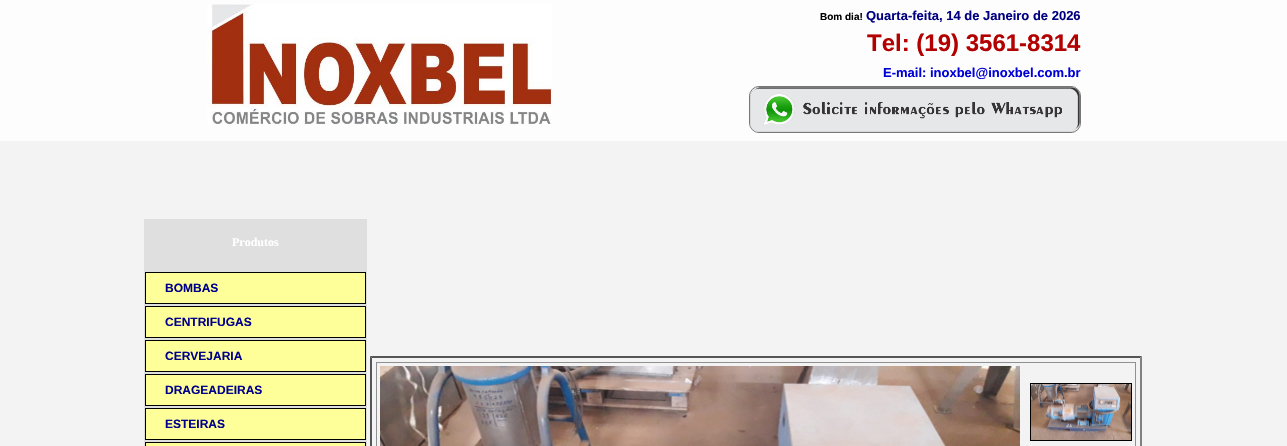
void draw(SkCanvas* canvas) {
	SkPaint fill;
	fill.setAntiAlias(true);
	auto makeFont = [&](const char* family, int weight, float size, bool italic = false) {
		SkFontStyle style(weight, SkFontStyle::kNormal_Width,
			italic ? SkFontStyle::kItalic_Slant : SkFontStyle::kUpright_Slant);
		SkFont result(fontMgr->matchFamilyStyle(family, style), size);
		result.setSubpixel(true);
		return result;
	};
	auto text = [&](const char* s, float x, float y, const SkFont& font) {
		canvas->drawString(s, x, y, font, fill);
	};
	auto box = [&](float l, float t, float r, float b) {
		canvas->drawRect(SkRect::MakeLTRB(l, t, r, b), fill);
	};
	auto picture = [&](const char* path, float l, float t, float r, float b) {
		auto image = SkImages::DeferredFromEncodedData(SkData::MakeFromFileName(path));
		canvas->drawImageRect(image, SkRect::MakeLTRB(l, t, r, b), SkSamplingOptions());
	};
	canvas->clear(0xFFF3F3F3);
	fill.setColor(0xFFFDFDFD);
	box(0, 0, 1287, 141);
	picture("image0.png", 207, 4, 552, 124);
	fill.setColor(0xFFEEEEEE);
	canvas->drawRoundRect(SkRect::MakeLTRB(749.5f, 86.5f, 1080.5f, 132.5f), 9.5f, 9.5f, fill);
	fill.setStyle(SkPaint::kStroke_Style);
	fill.setStrokeWidth(1);
	fill.setColor(0xFF777777);
	canvas->drawRoundRect(SkRect::MakeLTRB(749.5f, 86.5f, 1080.5f, 132.5f), 9.5f, 9.5f, fill);
	picture("image1.png", 750, 87, 1080, 132);
	fill.setStyle(SkPaint::kFill_Style);
	fill.setColor(0xFFDFDFDF);
	box(144, 219, 367, 446);
	fill.setColor(0xFFFFFF99);
	canvas->drawRect(SkRect::MakeLTRB(145.5f, 272.5f, 365.5f, 303.5f), fill);
	fill.setStyle(SkPaint::kStroke_Style);
	fill.setColor(0xFF000000);
	canvas->drawRect(SkRect::MakeLTRB(145.5f, 272.5f, 365.5f, 303.5f), fill);
	fill.setStyle(SkPaint::kFill_Style);
	fill.setColor(0xFFFFFF99);
	canvas->drawRect(SkRect::MakeLTRB(145.5f, 306.5f, 365.5f, 337.5f), fill);
	fill.setStyle(SkPaint::kStroke_Style);
	fill.setColor(0xFF000000);
	canvas->drawRect(SkRect::MakeLTRB(145.5f, 306.5f, 365.5f, 337.5f), fill);
	fill.setStyle(SkPaint::kFill_Style);
	fill.setColor(0xFFFFFF99);
	canvas->drawRect(SkRect::MakeLTRB(145.5f, 340.5f, 365.5f, 371.5f), fill);
	fill.setStyle(SkPaint::kStroke_Style);
	fill.setColor(0xFF000000);
	canvas->drawRect(SkRect::MakeLTRB(145.5f, 340.5f, 365.5f, 371.5f), fill);
	fill.setStyle(SkPaint::kFill_Style);
	fill.setColor(0xFFFFFF99);
	canvas->drawRect(SkRect::MakeLTRB(145.5f, 374.5f, 365.5f, 405.5f), fill);
	fill.setStyle(SkPaint::kStroke_Style);
	fill.setColor(0xFF000000);
	canvas->drawRect(SkRect::MakeLTRB(145.5f, 374.5f, 365.5f, 405.5f), fill);
	fill.setStyle(SkPaint::kFill_Style);
	fill.setColor(0xFFFFFF99);
	canvas->drawRect(SkRect::MakeLTRB(145.5f, 408.5f, 365.5f, 439.5f), fill);
	fill.setStyle(SkPaint::kStroke_Style);
	fill.setColor(0xFF000000);
	canvas->drawRect(SkRect::MakeLTRB(145.5f, 408.5f, 365.5f, 439.5f), fill);
	fill.setStyle(SkPaint::kFill_Style);
	fill.setColor(0xFFFFFF99);
	canvas->drawRect(SkRect::MakeLTRB(145.5f, 442.5f, 365.5f, 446.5f), fill);
	fill.setStyle(SkPaint::kStroke_Style);
	fill.setColor(0xFF000000);
	canvas->drawRect(SkRect::MakeLTRB(145.5f, 442.5f, 365.5f, 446.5f), fill);
	fill.setStyle(SkPaint::kFill_Style);
	fill.setColor(0xFF555555);
	canvas->drawPath(SkPathBuilder().moveTo(370, 356).lineTo(1142, 356).lineTo(1140, 358).lineTo(372, 358).close().detach(), fill);
	fill.setColor(0xFF808080);
	canvas->drawPath(SkPathBuilder().moveTo(1142, 356).lineTo(1142, 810).lineTo(1140, 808).lineTo(1140, 358).close().detach(), fill);
	fill.setColor(0xFF555555);
	canvas->drawPath(SkPathBuilder().moveTo(370, 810).lineTo(370, 356).lineTo(372, 358).lineTo(372, 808).close().detach(), fill);
	fill.setStyle(SkPaint::kStroke_Style);
	fill.setColor(0xFF909090);
	canvas->drawRect(SkRect::MakeLTRB(376.5f, 362.5f, 1135.5f, 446.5f), fill);
	picture("image2.png", 380, 366, 1020, 446);
	fill.setColor(0xFF000000);
	canvas->drawRect(SkRect::MakeLTRB(1030.5f, 383.5f, 1131.5f, 440.5f), fill);
	picture("image3.png", 1031, 384, 1131, 440);
	auto font1 = makeFont("Liberation Sans", 700, 10);
	fill.setStyle(SkPaint::kFill_Style);
	text("Bom dia!", 820, 20, font1);
	auto font2 = makeFont("Liberation Sans", 700, 13);
	fill.setColor(0xFF000080);
	text("Quarta-feita, 14 de Janeiro de 2026", 866, 20, font2);
	auto font3 = makeFont("Liberation Sans", 700, 24);
	fill.setColor(0xFFB30000);
	text("Tel: (19) 3561-8314", 867, 51, font3);
	fill.setColor(0xFF0000D9);
	text("E-mail: inoxbel@inoxbel.com.br", 883, 77, font2);
	auto font4 = makeFont("Liberation Serif", 700, 12);
	fill.setColor(0xFFFFFFFF);
	text("Produtos", 232, 246, font4);
	auto font5 = makeFont("Liberation Sans", 700, 12);
	fill.setColor(0xFF00008C);
	text("BOMBAS", 165, 292, font5);
	text("CENTRIFUGAS", 165, 326, font5);
	text("CERVEJARIA", 165, 360, font5);
	text("DRAGEADEIRAS", 165, 394, font5);
	text("ESTEIRAS", 165, 428, font5);
}
